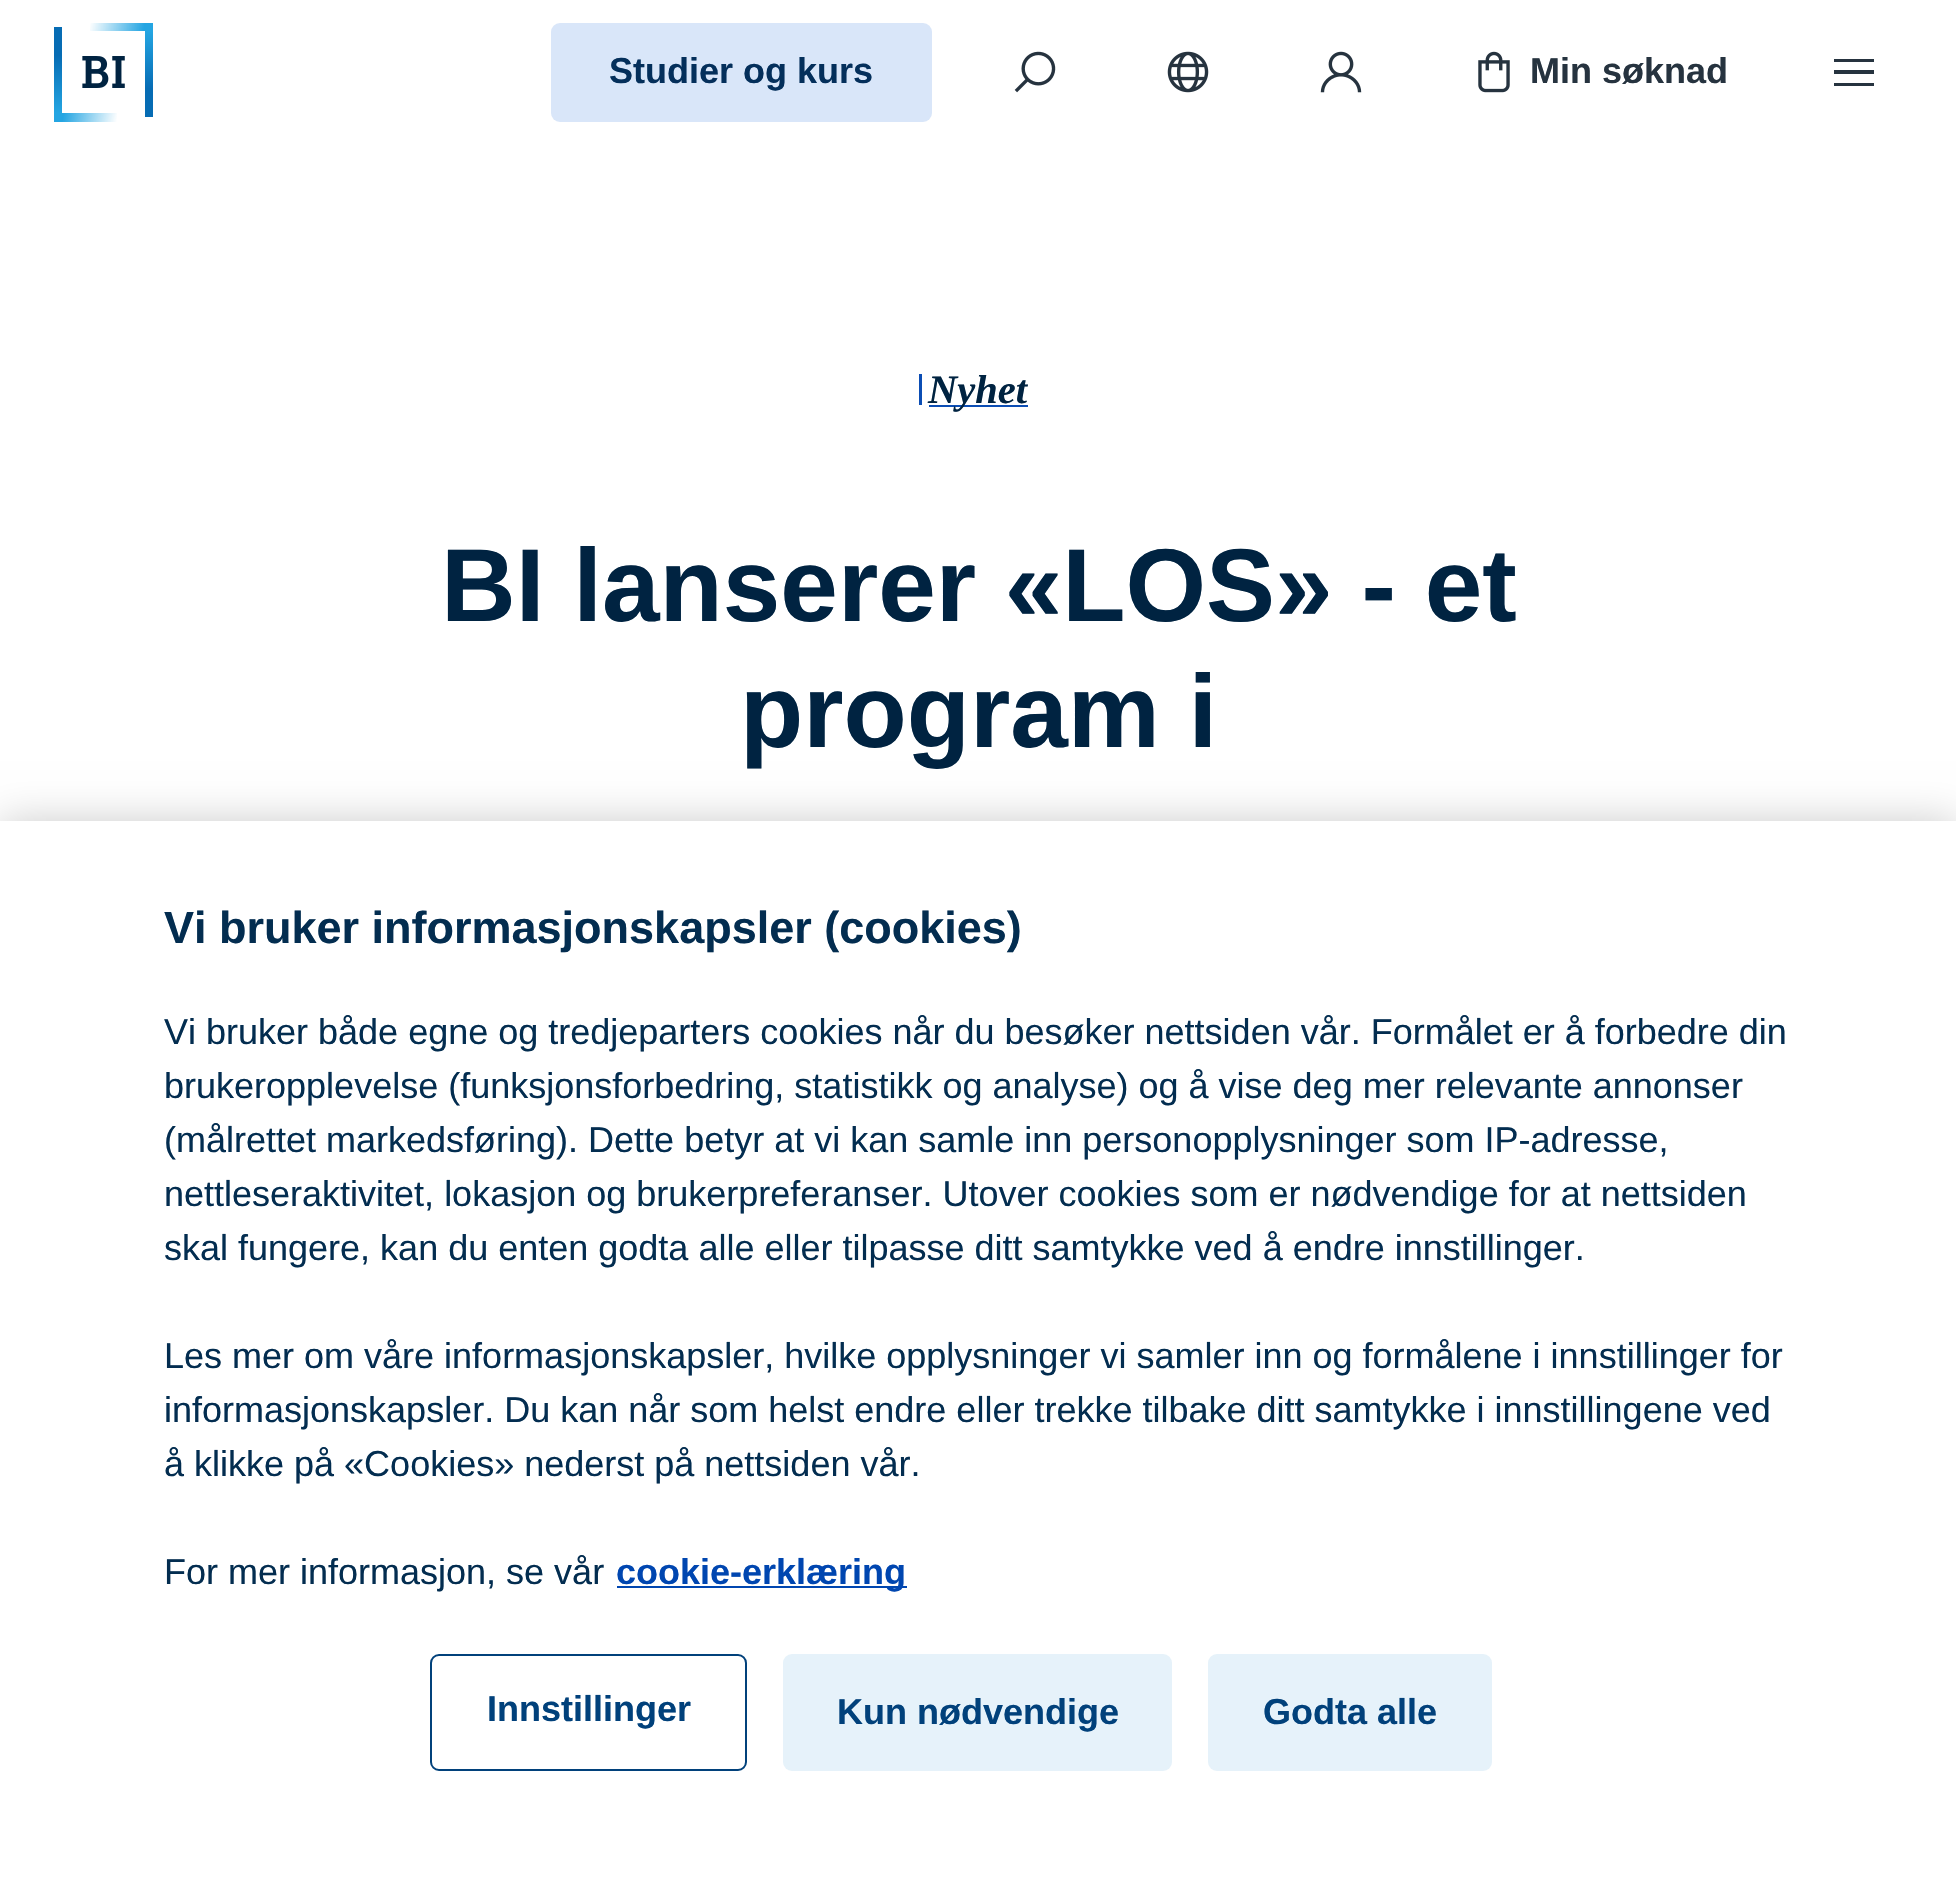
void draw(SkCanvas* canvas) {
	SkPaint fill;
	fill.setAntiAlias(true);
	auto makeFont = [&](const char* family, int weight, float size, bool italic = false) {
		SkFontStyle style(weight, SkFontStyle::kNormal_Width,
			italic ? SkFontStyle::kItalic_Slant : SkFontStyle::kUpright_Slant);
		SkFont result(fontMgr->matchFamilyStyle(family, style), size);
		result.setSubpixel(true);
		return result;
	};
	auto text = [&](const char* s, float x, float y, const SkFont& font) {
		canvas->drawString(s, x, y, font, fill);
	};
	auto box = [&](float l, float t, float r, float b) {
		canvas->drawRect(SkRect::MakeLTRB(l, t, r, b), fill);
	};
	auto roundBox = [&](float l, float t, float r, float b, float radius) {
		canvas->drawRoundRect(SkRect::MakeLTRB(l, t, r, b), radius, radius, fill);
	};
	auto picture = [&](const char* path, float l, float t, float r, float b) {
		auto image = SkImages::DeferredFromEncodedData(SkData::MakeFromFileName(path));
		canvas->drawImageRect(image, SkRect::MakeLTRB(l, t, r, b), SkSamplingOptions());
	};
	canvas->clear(0xFFFFFFFF);
	picture("image0.png", 54, 23, 153, 122);
	fill.setColor(0xFFD9E6F9);
	roundBox(551, 23, 932, 122, 9);
	picture("image1.png", 1014, 51, 1056, 93);
	picture("image2.png", 1167, 51, 1209, 93);
	picture("image3.png", 1320, 51, 1362, 93);
	picture("image4.png", 1478, 51, 1510, 93);
	fill.setColor(0xFF26333F);
	canvas->drawPath(SkPathBuilder(SkPathFillType::kEvenOdd).moveTo(1834, 59).lineTo(1874, 59).lineTo(1874, 62).lineTo(1834, 62).close().moveTo(1834, 70).lineTo(1874, 70).lineTo(1874, 74).lineTo(1834, 74).close().moveTo(1834, 83).lineTo(1874, 83).lineTo(1874, 86).lineTo(1834, 86).close().detach(), fill);
	fill.setColor(0xFF0B4DB4);
	box(919, 374, 922, 405);
	box(929, 405, 1028, 407);
	fill.setColor(0x33000000);
	fill.setMaskFilter(SkMaskFilter::MakeBlur(kNormal_SkBlurStyle, 20));
	canvas->drawRect(SkRect::MakeLTRB(0, 821, 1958, 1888), fill);
	fill.setMaskFilter(nullptr);
	fill.setColor(0xFFFFFFFF);
	box(0, 821, 1956, 1887);
	fill.setColor(0xFF0046B0);
	box(617, 1586, 907, 1588);
	fill.setStyle(SkPaint::kStroke_Style);
	fill.setStrokeWidth(2);
	fill.setColor(0xFF01417B);
	canvas->drawRoundRect(SkRect::MakeLTRB(431, 1655, 746, 1770), 8, 8, fill);
	fill.setStyle(SkPaint::kFill_Style);
	fill.setColor(0xFFE6F2FA);
	roundBox(783, 1654, 1172, 1771, 9);
	roundBox(1208, 1654, 1492, 1771, 9);
	auto font1 = makeFont("Liberation Sans", 700, 36);
	fill.setColor(0xFF042F5B);
	text("Studier og kurs", 609, 83, font1);
	fill.setColor(0xFF26333F);
	text("Min søknad", 1530, 83, font1);
	auto font2 = makeFont("Liberation Serif", 700, 40.5f, true);
	fill.setColor(0xFF002341);
	text("Nyhet", 928, 403, font2);
	auto font3 = makeFont("Liberation Sans", 700, 103.5f);
	text("BI lanserer «LOS» - et", 441, 621, font3);
	text("program i", 740, 747, font3);
	auto font4 = makeFont("Liberation Sans", 700, 45);
	fill.setColor(0xFF032D50);
	text("Vi bruker informasjonskapsler (cookies)", 164, 943, font4);
	auto font5 = makeFont("Liberation Sans", 400, 36);
	text("Vi bruker både egne og tredjeparters cookies når du besøker nettsiden vår. Formålet er å forbedre din", 164, 1044, font5);
	text("brukeropplevelse (funksjonsforbedring, statistikk og analyse) og å vise deg mer relevante annonser", 164, 1098, font5);
	text("(målrettet markedsføring). Dette betyr at vi kan samle inn personopplysninger som IP-adresse,", 164, 1152, font5);
	text("nettleseraktivitet, lokasjon og brukerpreferanser. Utover cookies som er nødvendige for at nettsiden", 164, 1206, font5);
	text("skal fungere, kan du enten godta alle eller tilpasse ditt samtykke ved å endre innstillinger.", 164, 1260, font5);
	text("Les mer om våre informasjonskapsler, hvilke opplysninger vi samler inn og formålene i innstillinger for", 164, 1368, font5);
	text("informasjonskapsler. Du kan når som helst endre eller trekke tilbake ditt samtykke i innstillingene ved", 164, 1422, font5);
	text("å klikke på «Cookies» nederst på nettsiden vår.", 164, 1476, font5);
	text("For mer informasjon, se vår", 164, 1584, font5);
	fill.setColor(0xFF0046B0);
	text("cookie-erklæring", 616, 1584, font1);
	fill.setColor(0xFF01417B);
	text("Innstillinger", 487, 1721, font1);
	text("Kun nødvendige", 837, 1724, font1);
	text("Godta alle", 1263, 1724, font1);
}
